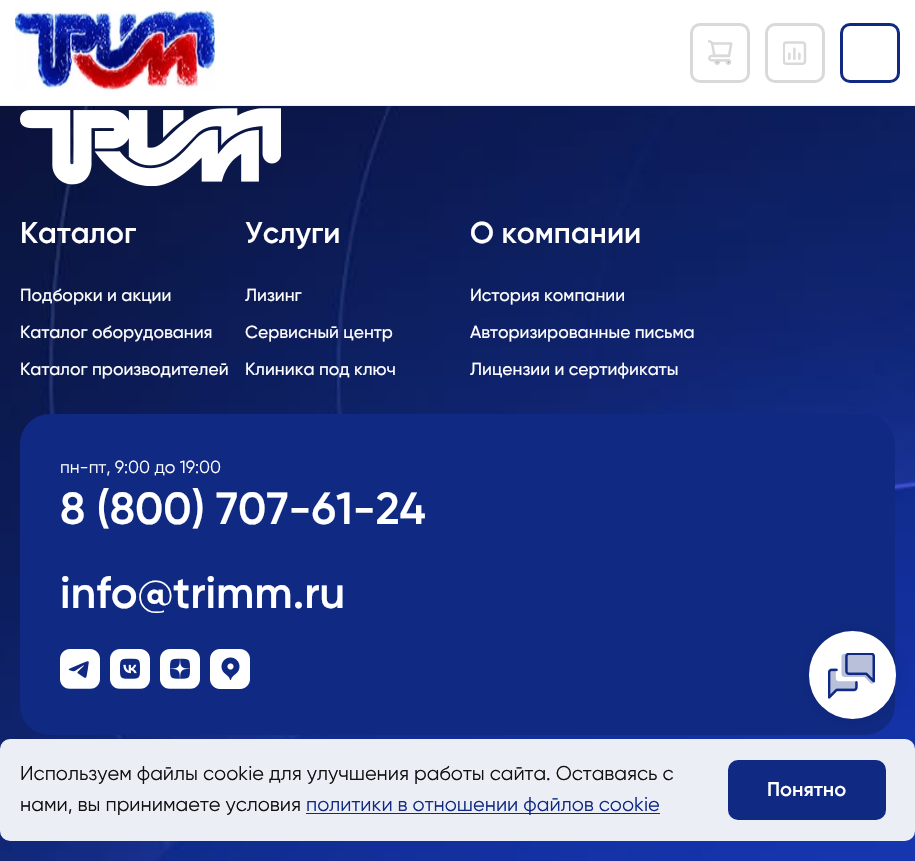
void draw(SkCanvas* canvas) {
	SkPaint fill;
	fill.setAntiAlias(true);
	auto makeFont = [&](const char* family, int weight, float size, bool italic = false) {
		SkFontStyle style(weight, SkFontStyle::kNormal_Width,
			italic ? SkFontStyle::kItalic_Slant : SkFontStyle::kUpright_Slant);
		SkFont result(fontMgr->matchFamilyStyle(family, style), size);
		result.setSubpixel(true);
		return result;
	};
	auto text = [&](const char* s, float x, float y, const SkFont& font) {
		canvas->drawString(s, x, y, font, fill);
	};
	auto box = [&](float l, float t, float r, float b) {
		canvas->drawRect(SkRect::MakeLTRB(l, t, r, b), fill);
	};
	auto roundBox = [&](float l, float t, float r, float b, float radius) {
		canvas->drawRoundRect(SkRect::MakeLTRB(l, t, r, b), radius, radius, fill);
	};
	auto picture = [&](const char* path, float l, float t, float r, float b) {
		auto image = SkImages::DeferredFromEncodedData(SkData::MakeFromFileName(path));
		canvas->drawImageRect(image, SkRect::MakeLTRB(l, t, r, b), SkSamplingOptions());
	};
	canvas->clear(0xFFFFFFFF);
	fill.setColor(0xFFECEEF5);
	box(0, 105, 915, 106);
	picture("image0.png", 15, 9, 215, 91);
	fill.setStyle(SkPaint::kStroke_Style);
	fill.setStrokeWidth(3);
	fill.setColor(0xFFD9D9D9);
	canvas->drawRoundRect(SkRect::MakeLTRB(691.5f, 24.5f, 748.5f, 81.5f), 8.5f, 8.5f, fill);
	picture("image1.png", 708, 40, 733, 65);
	canvas->drawRoundRect(SkRect::MakeLTRB(766.5f, 24.5f, 823.5f, 81.5f), 8.5f, 8.5f, fill);
	picture("image2.png", 783, 41, 807, 65);
	fill.setColor(0xFF102A83);
	canvas->drawRoundRect(SkRect::MakeLTRB(841.5f, 24.5f, 898.5f, 81.5f), 8.5f, 8.5f, fill);
	picture("image3.png", 0, 106, 915, 861);
	picture("image4.png", 20, 108, 281, 186);
	fill.setStyle(SkPaint::kFill_Style);
	roundBox(20, 414, 895, 735, 30);
	picture("image5.png", 60, 649, 100, 689);
	picture("image6.png", 110, 649, 150, 689);
	picture("image7.png", 160, 649, 200, 689);
	picture("image8.png", 210, 649, 250, 689);
	fill.setColor(0x1A000000);
	fill.setMaskFilter(SkMaskFilter::MakeBlur(kNormal_SkBlurStyle, 9.5f));
	canvas->drawRoundRect(SkRect::MakeLTRB(809, 631, 896, 719), 43.5f, 43.5f, fill);
	fill.setMaskFilter(nullptr);
	fill.setColor(0xFFFFFFFF);
	roundBox(809, 631, 896, 719, 43.5f);
	picture("image9.png", 828, 653, 875, 699);
	fill.setColor(0xFFECEEF5);
	roundBox(0, 739, 915, 841, 10);
	fill.setColor(0xFF102A83);
	box(306, 813, 660, 814);
	roundBox(728, 760, 886, 820, 10);
	auto font1 = makeFont("Gilroy", 600, 30);
	fill.setColor(0xFFFFFFFF);
	text("Каталог", 20, 243, font1);
	auto font2 = makeFont("Gilroy", 500, 17.5f);
	text("Подборки и акции", 20, 301, font2);
	text("Каталог оборудования", 20, 338, font2);
	text("Каталог производителей", 20, 375, font2);
	text("Услуги", 245, 243, font1);
	text("Лизинг", 245, 301, font2);
	text("Сервисный центр", 245, 338, font2);
	text("Клиника под ключ", 245, 375, font2);
	text("О компании", 470, 243, font1);
	text("История компании", 470, 301, font2);
	text("Авторизированные письма", 470, 338, font2);
	text("Лицензии и сертификаты", 470, 375, font2);
	auto font3 = makeFont("Gilroy", 400, 17.5f);
	text("пн-пт, 9:00 до 19:00", 60, 473, font3);
	auto font4 = makeFont("Gilroy", 600, 45);
	text("8 (800) 707-61-24", 60, 524, font4);
	text("info@trimm.ru", 60, 608, font4);
	auto font5 = makeFont("Gilroy", 400, 20);
	fill.setColor(0xFF111111);
	text("Используем файлы cookie для улучшения работы сайта. Оставаясь с", 20, 780, font5);
	text("нами, вы принимаете условия", 20, 811, font5);
	fill.setColor(0xFF102A83);
	text("политики в отношении файлов cookie", 306, 811, font5);
	auto font6 = makeFont("Gilroy", 600, 20);
	fill.setColor(0xFFFFFFFF);
	text("Понятно", 767, 796, font6);
}
